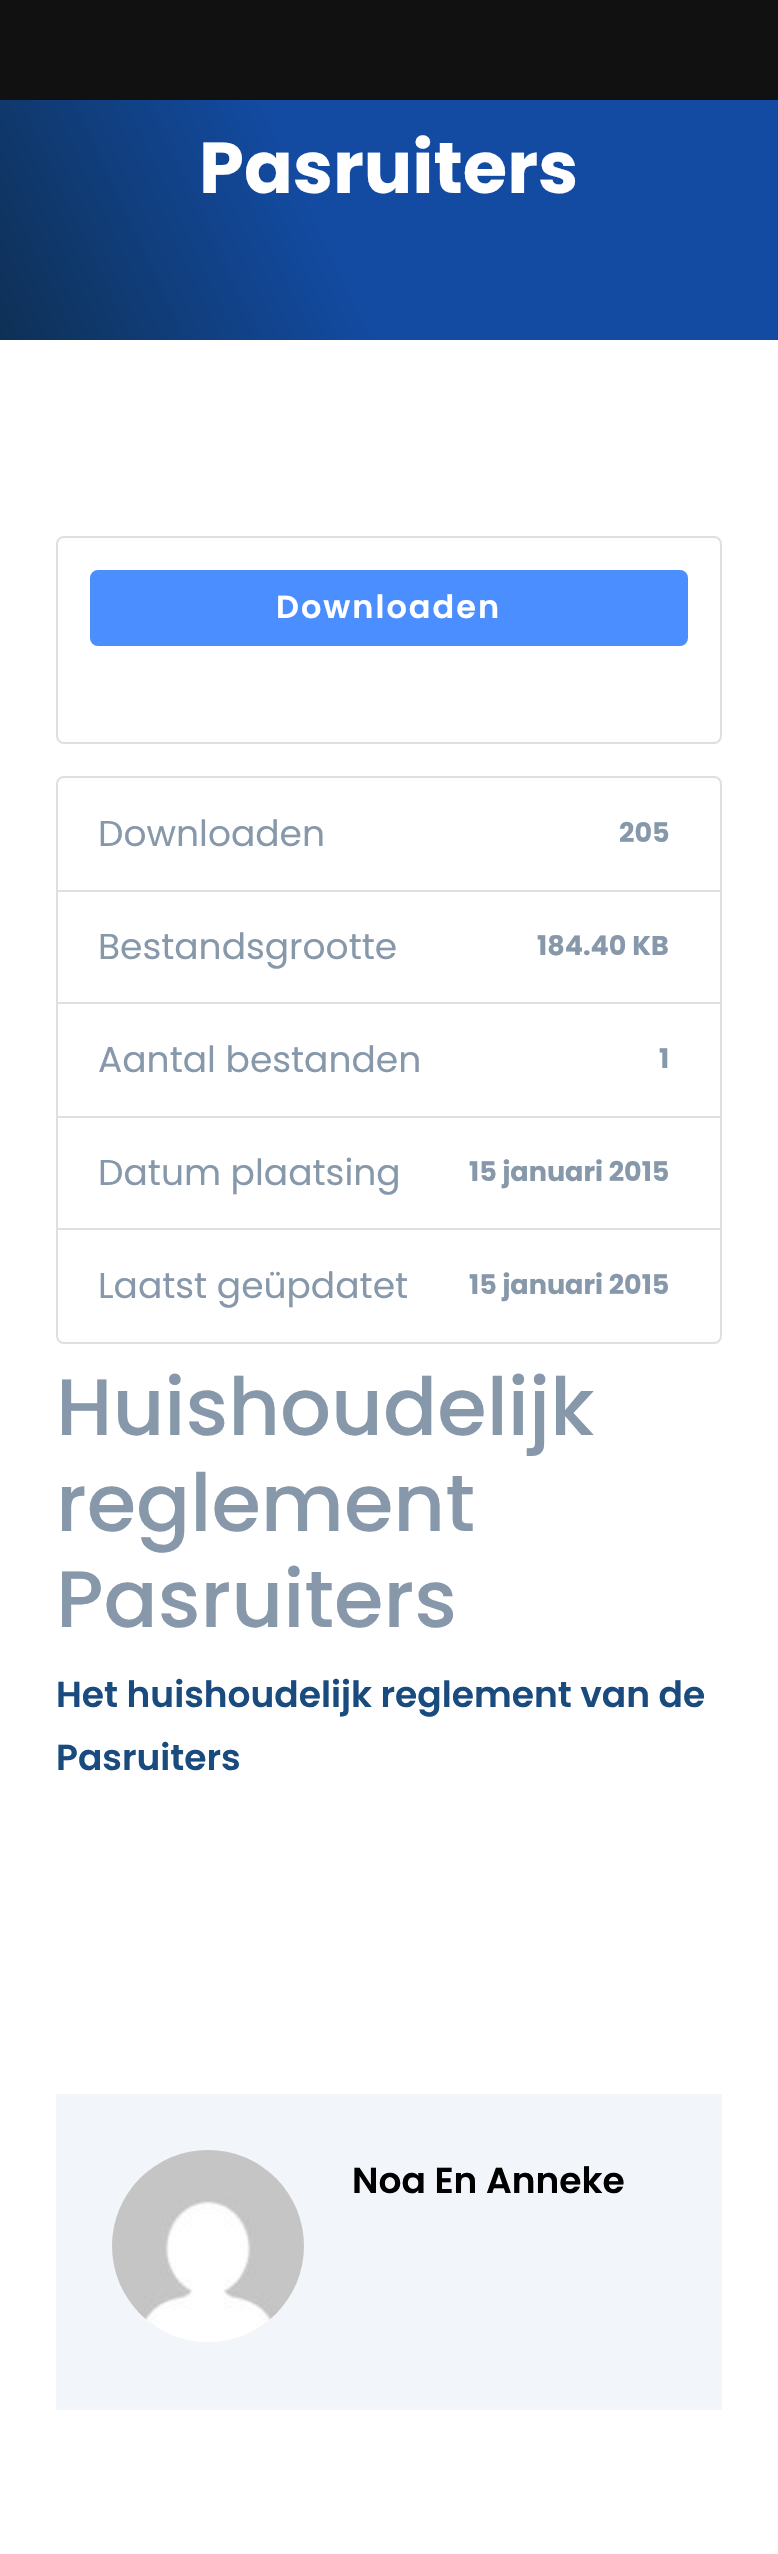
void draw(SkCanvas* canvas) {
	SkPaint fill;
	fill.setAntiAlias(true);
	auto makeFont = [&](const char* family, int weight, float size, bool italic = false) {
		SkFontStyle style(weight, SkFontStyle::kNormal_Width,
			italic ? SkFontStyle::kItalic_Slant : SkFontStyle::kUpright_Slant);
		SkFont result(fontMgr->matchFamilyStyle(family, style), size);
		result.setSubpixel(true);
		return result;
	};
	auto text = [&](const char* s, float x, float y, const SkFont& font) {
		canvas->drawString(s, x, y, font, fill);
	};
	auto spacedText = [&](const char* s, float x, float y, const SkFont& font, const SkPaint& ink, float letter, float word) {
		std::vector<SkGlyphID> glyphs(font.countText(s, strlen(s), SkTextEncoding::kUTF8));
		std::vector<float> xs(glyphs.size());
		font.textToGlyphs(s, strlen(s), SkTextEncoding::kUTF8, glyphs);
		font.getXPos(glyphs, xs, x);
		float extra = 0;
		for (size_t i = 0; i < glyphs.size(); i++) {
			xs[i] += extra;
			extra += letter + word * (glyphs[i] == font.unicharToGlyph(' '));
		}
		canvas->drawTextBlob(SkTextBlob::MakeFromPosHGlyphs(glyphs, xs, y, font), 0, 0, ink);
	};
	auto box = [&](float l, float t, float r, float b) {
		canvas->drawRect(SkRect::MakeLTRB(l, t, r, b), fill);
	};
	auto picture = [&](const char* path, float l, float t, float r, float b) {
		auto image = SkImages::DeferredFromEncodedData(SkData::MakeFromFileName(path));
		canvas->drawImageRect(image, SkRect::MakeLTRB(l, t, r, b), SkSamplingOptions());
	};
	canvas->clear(0xFFFFFFFF);
	fill.setColor(0xFF111111);
	box(0, 0, 778, 100);
	{
		const SkColor colors[] = {0xFF0E3055, 0xFF134BA2};
		const float stops[] = {0, 0.35f};
		const SkPoint ends[] = {{-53, 226}, {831, -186}};
		fill.setShader(SkGradientShader::MakeLinear(ends, colors, stops, 2, SkTileMode::kClamp));
		fill.setAlpha(255);
	}
	box(0, 100, 778, 340);
	fill.setStyle(SkPaint::kStroke_Style);
	fill.setStrokeWidth(2);
	fill.setShader(nullptr);
	fill.setColor(0xFFDFDFDF);
	canvas->drawRoundRect(SkRect::MakeLTRB(57, 537, 721, 743), 7, 7, fill);
	fill.setStyle(SkPaint::kFill_Style);
	fill.setColor(0xFF4A8EFF);
	canvas->drawRoundRect(SkRect::MakeLTRB(91, 571, 687, 645), 7, 7, fill);
	fill.setStyle(SkPaint::kStroke_Style);
	canvas->drawRoundRect(SkRect::MakeLTRB(91, 571, 687, 645), 7, 7, fill);
	fill.setColor(0xFFDFDFDF);
	canvas->drawPath(SkPathBuilder().moveTo(64, 777).lineTo(714, 777).cubicTo(718, 777, 721, 780, 721, 784).lineTo(721, 891).lineTo(57, 891).lineTo(57, 784).cubicTo(57, 780, 60, 777, 64, 777).close().detach(), fill);
	canvas->drawRect(SkRect::MakeLTRB(57, 891, 721, 1003), fill);
	canvas->drawRect(SkRect::MakeLTRB(57, 1003, 721, 1117), fill);
	canvas->drawRect(SkRect::MakeLTRB(57, 1117, 721, 1229), fill);
	fill.setStyle(SkPaint::kFill_Style);
	fill.setColor(0xFFFFFFFF);
	canvas->drawPath(SkPathBuilder().moveTo(57, 1229).lineTo(721, 1229).lineTo(721, 1336).cubicTo(721, 1340, 718, 1343, 714, 1343).lineTo(64, 1343).cubicTo(60, 1343, 57, 1340, 57, 1336).close().detach(), fill);
	fill.setStyle(SkPaint::kStroke_Style);
	fill.setColor(0xFFDFDFDF);
	canvas->drawPath(SkPathBuilder().moveTo(57, 1229).lineTo(721, 1229).lineTo(721, 1336).cubicTo(721, 1340, 718, 1343, 714, 1343).lineTo(64, 1343).cubicTo(60, 1343, 57, 1340, 57, 1336).close().detach(), fill);
	fill.setStyle(SkPaint::kFill_Style);
	fill.setColor(0xFFF2F5FA);
	box(56, 2094, 722, 2410);
	picture("image0.png", 112, 2150, 304, 2342);
	auto font1 = makeFont("Poppins", 700, 72);
	fill.setColor(0xFFFFFFFF);
	text("Pasruiters", 199, 193, font1);
	auto font2 = makeFont("Poppins", 600, 32);
	spacedText("Downloaden", 276, 618, font2, fill, 2, 0);
	auto font3 = makeFont("Poppins", 400, 36);
	fill.setColor(0xFF8698AA);
	text("Downloaden", 98, 846, font3);
	auto font4 = makeFont("Poppins", 700, 27);
	text("205", 619, 842, font4);
	text("Bestandsgrootte", 98, 959, font3);
	text("184.40 KB", 537, 955, font4);
	text("Aantal bestanden", 98, 1072, font3);
	text("1", 659, 1068, font4);
	text("Datum plaatsing", 98, 1185, font3);
	text("15 januari 2015", 469, 1181, font4);
	text("Laatst geüpdatet", 98, 1298, font3);
	text("15 januari 2015", 469, 1294, font4);
	auto font5 = makeFont("Poppins", 500, 80);
	text("Huishoudelijk", 56, 1435, font5);
	text("reglement", 56, 1531, font5);
	text("Pasruiters", 56, 1627, font5);
	auto font6 = makeFont("Poppins", 600, 36);
	fill.setColor(0xFF1A4B7E);
	text("Het huishoudelijk reglement van de", 56, 1707, font6);
	text("Pasruiters", 56, 1770, font6);
	fill.setColor(0xFF000000);
	text("Noa En Anneke", 352, 2193, font6);
}
